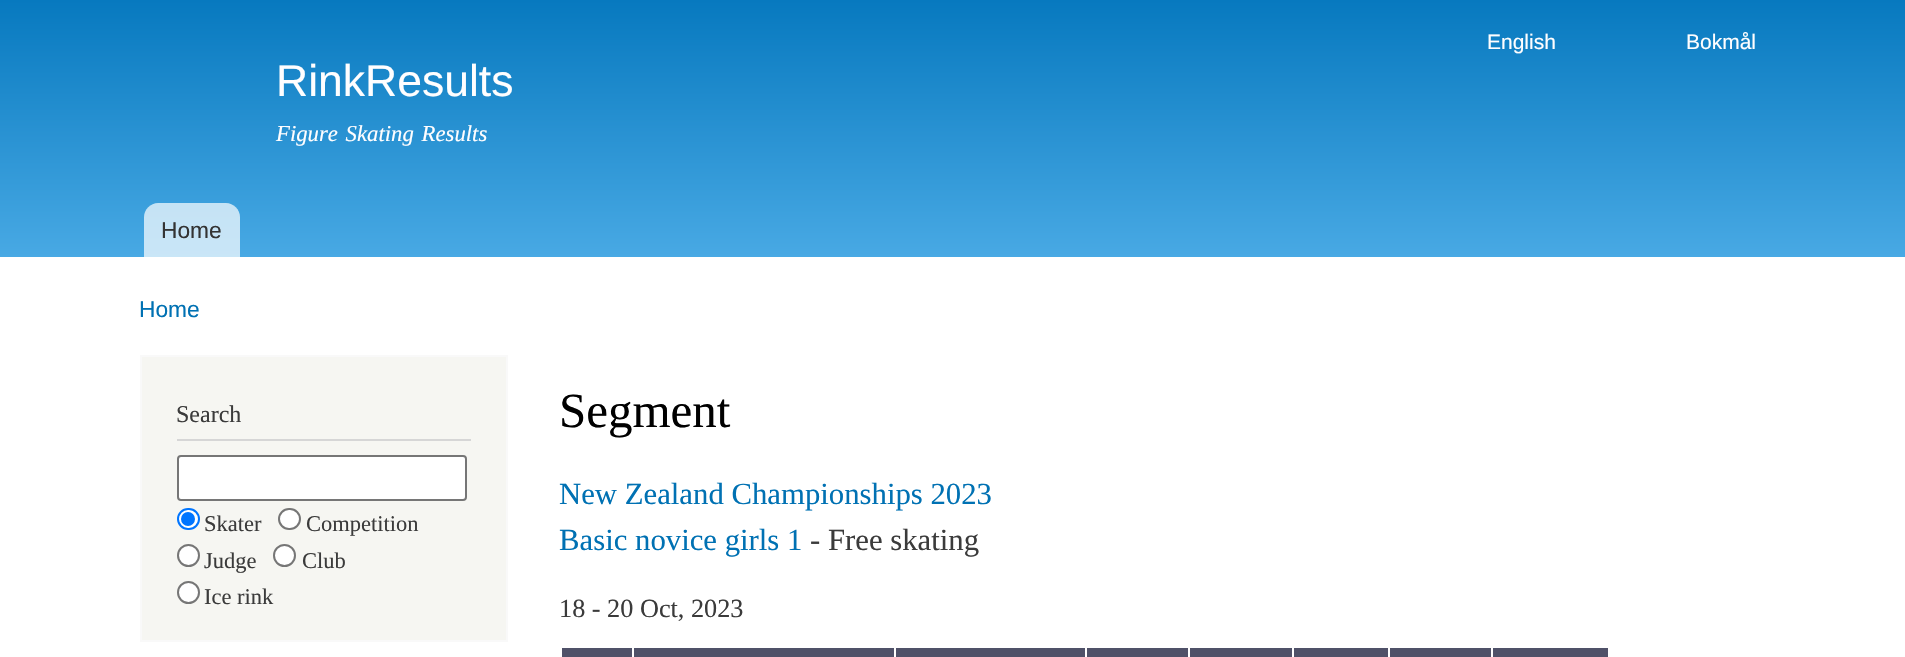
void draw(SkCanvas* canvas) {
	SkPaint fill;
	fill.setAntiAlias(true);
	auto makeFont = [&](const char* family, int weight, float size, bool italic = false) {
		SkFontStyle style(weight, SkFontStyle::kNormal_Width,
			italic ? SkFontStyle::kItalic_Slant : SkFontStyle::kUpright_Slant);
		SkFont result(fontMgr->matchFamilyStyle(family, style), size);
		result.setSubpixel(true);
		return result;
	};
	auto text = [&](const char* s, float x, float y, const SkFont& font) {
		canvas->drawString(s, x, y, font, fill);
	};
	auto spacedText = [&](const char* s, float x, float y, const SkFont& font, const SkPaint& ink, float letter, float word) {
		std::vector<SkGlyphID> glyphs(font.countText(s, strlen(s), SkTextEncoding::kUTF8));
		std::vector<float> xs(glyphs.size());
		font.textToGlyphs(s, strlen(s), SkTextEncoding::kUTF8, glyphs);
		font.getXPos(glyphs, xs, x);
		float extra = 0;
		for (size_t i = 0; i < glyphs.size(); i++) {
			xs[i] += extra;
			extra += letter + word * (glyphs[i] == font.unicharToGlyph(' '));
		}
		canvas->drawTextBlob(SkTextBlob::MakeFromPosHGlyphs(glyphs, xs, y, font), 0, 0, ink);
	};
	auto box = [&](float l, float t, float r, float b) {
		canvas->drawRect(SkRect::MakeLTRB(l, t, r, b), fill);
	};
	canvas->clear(0xFFFFFFFF);
	{
		const SkColor colors[] = {0xFF0779BF, 0xFF48A9E4};
		const float stops[] = {0, 1};
		const SkPoint ends[] = {{953, 0}, {953, 257}};
		fill.setShader(SkGradientShader::MakeLinear(ends, colors, stops, 2, SkTileMode::kClamp));
		fill.setAlpha(255);
	}
	box(0, 0, 1905, 257);
	fill.setShader(nullptr);
	fill.setColor(0xB3FFFFFF);
	canvas->drawPath(SkPathBuilder().moveTo(158, 203).lineTo(226, 203).cubicTo(233.5f, 203, 240, 209.5f, 240, 217).lineTo(240, 257).lineTo(144, 257).lineTo(144, 217).cubicTo(144, 209.5f, 150.5f, 203, 158, 203).close().detach(), fill);
	fill.setColor(0xFFF6F6F2);
	canvas->drawRect(SkRect::MakeLTRB(141, 356, 507, 641), fill);
	fill.setStyle(SkPaint::kStroke_Style);
	fill.setStrokeWidth(2);
	fill.setColor(0xFFF9F9F9);
	canvas->drawRect(SkRect::MakeLTRB(141, 356, 507, 641), fill);
	fill.setStyle(SkPaint::kFill_Style);
	fill.setColor(0xFFD6D6D6);
	box(177, 439, 471, 441);
	fill.setColor(0xFFFFFFFF);
	canvas->drawRoundRect(SkRect::MakeLTRB(178, 456, 466, 500), 3, 3, fill);
	fill.setStyle(SkPaint::kStroke_Style);
	fill.setColor(0xFF767676);
	canvas->drawRoundRect(SkRect::MakeLTRB(178, 456, 466, 500), 3, 3, fill);
	fill.setStyle(SkPaint::kFill_Style);
	fill.setColor(0xFFFFFFFF);
	canvas->drawRoundRect(SkRect::MakeLTRB(178, 509, 199, 529), 10, 10, fill);
	fill.setStyle(SkPaint::kStroke_Style);
	fill.setColor(0xFF0075FF);
	canvas->drawRoundRect(SkRect::MakeLTRB(178, 509, 199, 529), 10, 10, fill);
	fill.setStyle(SkPaint::kFill_Style);
	canvas->drawCircle(188, 519, 7, fill);
	fill.setColor(0xFFFFFFFF);
	canvas->drawRoundRect(SkRect::MakeLTRB(279, 509, 300, 529), 10, 10, fill);
	fill.setStyle(SkPaint::kStroke_Style);
	fill.setColor(0xFF767676);
	canvas->drawRoundRect(SkRect::MakeLTRB(279, 509, 300, 529), 10, 10, fill);
	fill.setStyle(SkPaint::kFill_Style);
	fill.setColor(0xFFFFFFFF);
	canvas->drawCircle(188.5f, 555.5f, 10.5f, fill);
	fill.setStyle(SkPaint::kStroke_Style);
	fill.setColor(0xFF767676);
	canvas->drawCircle(188.5f, 555.5f, 10.5f, fill);
	fill.setStyle(SkPaint::kFill_Style);
	fill.setColor(0xFFFFFFFF);
	canvas->drawCircle(284.5f, 555.5f, 10.5f, fill);
	fill.setStyle(SkPaint::kStroke_Style);
	fill.setColor(0xFF767676);
	canvas->drawCircle(284.5f, 555.5f, 10.5f, fill);
	fill.setStyle(SkPaint::kFill_Style);
	fill.setColor(0xFFFFFFFF);
	canvas->drawCircle(188.5f, 592.5f, 10.5f, fill);
	fill.setStyle(SkPaint::kStroke_Style);
	fill.setColor(0xFF767676);
	canvas->drawCircle(188.5f, 592.5f, 10.5f, fill);
	fill.setStyle(SkPaint::kFill_Style);
	fill.setColor(0xFF4F5168);
	box(562, 648, 632, 657);
	box(634, 648, 894, 657);
	box(896, 648, 1085, 657);
	box(1087, 648, 1188, 657);
	box(1190, 648, 1292, 657);
	box(1294, 648, 1388, 657);
	box(1390, 648, 1491, 657);
	box(1493, 648, 1608, 657);
	auto font1 = makeFont("Liberation Sans", 400, 21);
	fill.setColor(0xFFFFFEFF);
	text("English", 1487, 49, font1);
	text("Bokmål", 1686, 49, font1);
	auto font2 = makeFont("Liberation Sans", 400, 44.5f);
	text("RinkResults", 276, 96, font2);
	auto font3 = makeFont("Liberation Serif", 400, 22.75f, true);
	spacedText("Figure Skating Results", 276, 141, font3, fill, 0, 2);
	auto font4 = makeFont("Liberation Sans", 400, 22.75f);
	fill.setColor(0xFF333333);
	text("Home", 161, 238, font4);
	fill.setColor(0xFF0071B3);
	text("Home", 139, 317, font4);
	auto font5 = makeFont("Liberation Serif", 400, 24);
	fill.setColor(0xFF3B3B3B);
	text("Search", 176, 422, font5);
	auto font6 = makeFont("Liberation Serif", 400, 22.5f);
	text("Skater", 204, 531, font6);
	text("Competition", 306, 531, font6);
	text("Judge", 204, 568, font6);
	text("Club", 302, 568, font6);
	text("Ice rink", 204, 604, font6);
	auto font7 = makeFont("Liberation Serif", 400, 49);
	fill.setColor(0xFF000000);
	text("Segment", 559, 427, font7);
	auto font8 = makeFont("Liberation Serif", 400, 30.75f);
	fill.setColor(0xFF0071B3);
	text("New Zealand Championships 2023", 559, 504, font8);
	text("Basic novice girls 1", 559, 550, font8);
	fill.setColor(0xFF3B3B3B);
	text("- Free skating", 810, 550, font8);
	auto font9 = makeFont("Liberation Serif", 400, 26.25f);
	text("18 - 20 Oct, 2023", 559, 617, font9);
}
